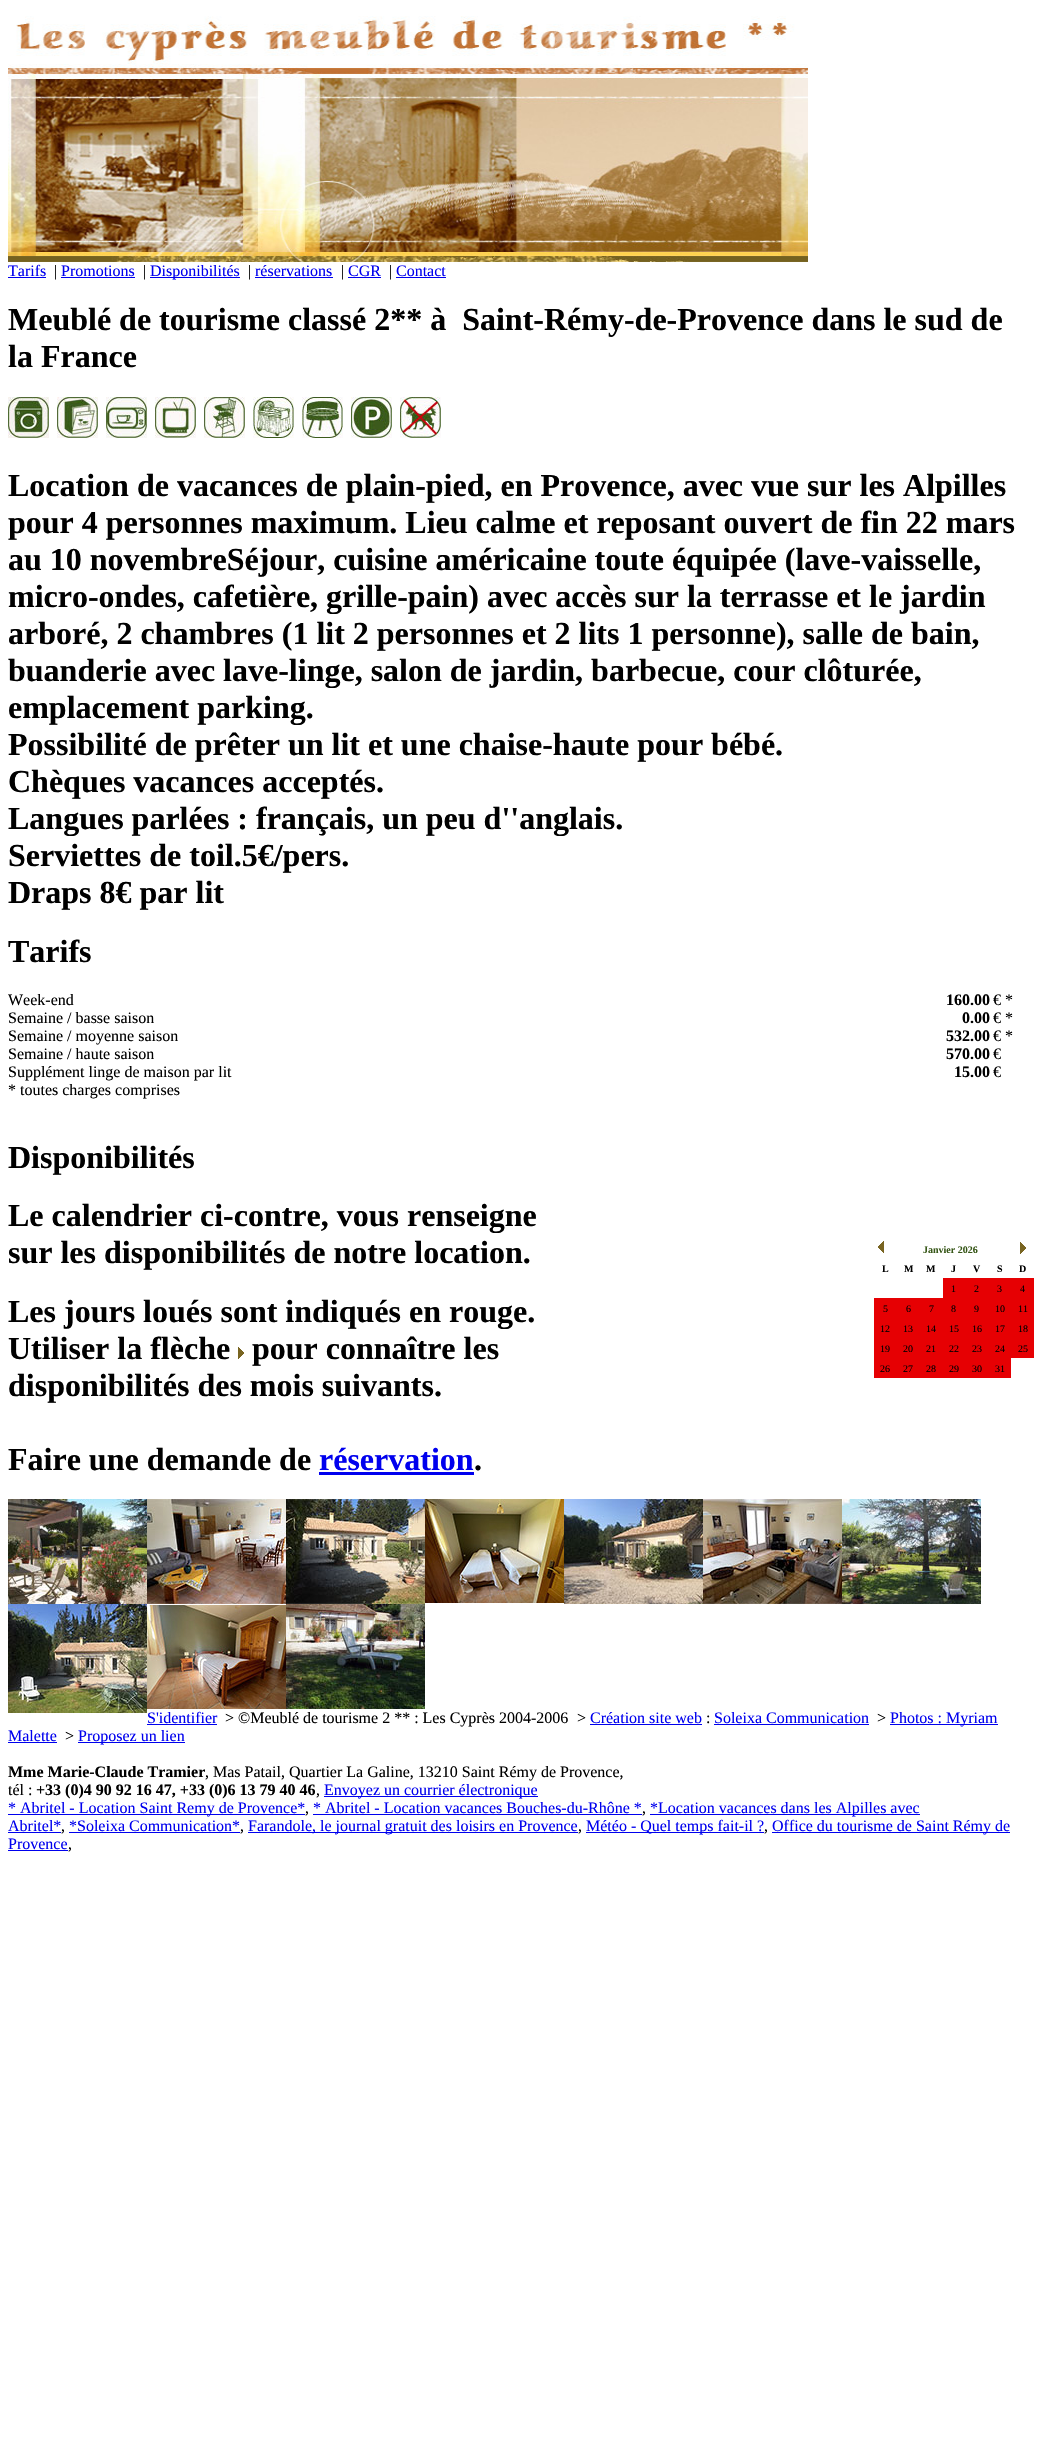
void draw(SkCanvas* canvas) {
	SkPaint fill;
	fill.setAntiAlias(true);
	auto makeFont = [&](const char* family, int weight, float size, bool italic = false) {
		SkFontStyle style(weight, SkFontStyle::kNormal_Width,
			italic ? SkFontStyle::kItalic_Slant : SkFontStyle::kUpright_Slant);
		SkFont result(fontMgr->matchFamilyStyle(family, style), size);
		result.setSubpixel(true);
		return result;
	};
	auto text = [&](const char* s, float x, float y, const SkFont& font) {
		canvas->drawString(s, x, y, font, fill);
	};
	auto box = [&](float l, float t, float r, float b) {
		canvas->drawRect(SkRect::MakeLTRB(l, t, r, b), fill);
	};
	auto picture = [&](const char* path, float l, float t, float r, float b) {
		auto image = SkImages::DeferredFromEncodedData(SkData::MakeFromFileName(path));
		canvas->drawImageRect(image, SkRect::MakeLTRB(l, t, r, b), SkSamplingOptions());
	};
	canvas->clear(0xFFFFFFFF);
	picture("image0.png", 8, 16, 808, 262);
	fill.setColor(0xFF0000EE);
	box(8, 277, 46, 278);
	box(61, 277, 135, 278);
	box(150, 277, 240, 278);
	box(255, 277, 333, 278);
	box(348, 277, 381, 278);
	box(396, 277, 446, 278);
	picture("image1.png", 8, 397, 49, 438);
	picture("image2.png", 57, 397, 98, 438);
	picture("image3.png", 106, 397, 147, 438);
	picture("image4.png", 155, 397, 196, 438);
	picture("image5.png", 204, 397, 245, 438);
	picture("image6.png", 253, 397, 294, 438);
	picture("image7.png", 302, 397, 343, 438);
	picture("image8.png", 351, 397, 392, 438);
	picture("image9.png", 400, 397, 441, 438);
	picture("image10.png", 238, 1347, 244, 1359);
	box(319, 1472, 474, 1475);
	picture("image11.png", 878, 1241, 884, 1253);
	picture("image10.png", 1020, 1242, 1026, 1254);
	fill.setColor(0xFFE60003);
	box(943, 1278, 1034, 1298);
	box(874, 1298, 1034, 1318);
	box(874, 1318, 1034, 1338);
	box(874, 1338, 1034, 1358);
	box(874, 1358, 1011, 1378);
	picture("image12.png", 8, 1499, 147, 1604);
	picture("image13.png", 147, 1499, 286, 1604);
	picture("image14.png", 286, 1499, 425, 1604);
	picture("image15.png", 425, 1499, 564, 1603);
	picture("image16.png", 564, 1499, 703, 1604);
	picture("image17.png", 703, 1499, 842, 1604);
	picture("image18.png", 842, 1499, 981, 1604);
	picture("image19.png", 8, 1604, 147, 1713);
	picture("image20.png", 147, 1605, 286, 1709);
	picture("image21.png", 286, 1604, 425, 1709);
	fill.setColor(0xFF0000EE);
	box(147, 1724, 217, 1725);
	box(590, 1724, 702, 1725);
	box(714, 1724, 869, 1725);
	box(890, 1724, 998, 1725);
	box(8, 1742, 57, 1743);
	box(78, 1742, 185, 1743);
	box(324, 1796, 538, 1797);
	box(8, 1814, 305, 1815);
	box(313, 1814, 642, 1815);
	box(650, 1814, 920, 1815);
	box(8, 1832, 61, 1833);
	box(69, 1832, 240, 1833);
	box(248, 1832, 578, 1833);
	box(586, 1832, 764, 1833);
	box(772, 1832, 1010, 1833);
	box(8, 1850, 68, 1851);
	auto font1 = makeFont("Liberation Serif", 400, 16);
	text("Tarifs", 8, 276, font1);
	fill.setColor(0xFF000000);
	text("|", 54, 276, font1);
	fill.setColor(0xFF0000EE);
	text("Promotions", 61, 276, font1);
	fill.setColor(0xFF000000);
	text("|", 143, 276, font1);
	fill.setColor(0xFF0000EE);
	text("Disponibilités", 150, 276, font1);
	fill.setColor(0xFF000000);
	text("|", 248, 276, font1);
	fill.setColor(0xFF0000EE);
	text("réservations", 255, 276, font1);
	fill.setColor(0xFF000000);
	text("|", 341, 276, font1);
	fill.setColor(0xFF0000EE);
	text("CGR", 348, 276, font1);
	fill.setColor(0xFF000000);
	text("|", 389, 276, font1);
	fill.setColor(0xFF0000EE);
	text("Contact", 396, 276, font1);
	auto font2 = makeFont("Liberation Serif", 700, 32);
	fill.setColor(0xFF000000);
	text("Meublé de tourisme classé 2** à  Saint-Rémy-de-Provence dans le sud de", 8, 330, font2);
	text("la France", 8, 367, font2);
	text("Location de vacances de plain-pied, en Provence, avec vue sur les Alpilles", 8, 496, font2);
	text("pour 4 personnes maximum. Lieu calme et reposant ouvert de fin 22 mars", 8, 533, font2);
	text("au 10 novembreSéjour, cuisine américaine toute équipée (lave-vaisselle,", 8, 570, font2);
	text("micro-ondes, cafetière, grille-pain) avec accès sur la terrasse et le jardin", 8, 607, font2);
	text("arboré, 2 chambres (1 lit 2 personnes et 2 lits 1 personne), salle de bain,", 8, 644, font2);
	text("buanderie avec lave-linge, salon de jardin, barbecue, cour clôturée,", 8, 681, font2);
	text("emplacement parking.", 8, 718, font2);
	text("Possibilité de prêter un lit et une chaise-haute pour bébé.", 8, 755, font2);
	text("Chèques vacances acceptés.", 8, 792, font2);
	text("Langues parlées : français, un peu d''anglais.", 8, 829, font2);
	text("Serviettes de toil.5€/pers.", 8, 866, font2);
	text("Draps 8€ par lit", 8, 903, font2);
	text("Tarifs", 8, 962, font2);
	text("Week-end", 8, 1005, font1);
	auto font3 = makeFont("Liberation Serif", 700, 16);
	text("160.00", 946, 1005, font3);
	text("€", 993, 1005, font1);
	text("*", 1005, 1005, font1);
	text("Semaine / basse saison", 8, 1023, font1);
	text("0.00", 962, 1023, font3);
	text("€", 993, 1023, font1);
	text("*", 1005, 1023, font1);
	text("Semaine / moyenne saison", 8, 1041, font1);
	text("532.00", 946, 1041, font3);
	text("€", 993, 1041, font1);
	text("*", 1005, 1041, font1);
	text("Semaine / haute saison", 8, 1059, font1);
	text("570.00", 946, 1059, font3);
	text("€", 993, 1059, font1);
	text("Supplément linge de maison par lit", 8, 1077, font1);
	text("15.00", 954, 1077, font3);
	text("€", 993, 1077, font1);
	text("* toutes charges comprises", 8, 1095, font1);
	text("Disponibilités", 8, 1168, font2);
	text("Le calendrier ci-contre, vous renseigne", 8, 1226, font2);
	text("sur les disponibilités de notre location.", 8, 1263, font2);
	text("Les jours loués sont indiqués en rouge.", 8, 1322, font2);
	text("Utiliser la flèche", 8, 1359, font2);
	text("pour connaître les", 252, 1359, font2);
	text("disponibilités des mois suivants.", 8, 1396, font2);
	text("Faire une demande de", 8, 1470, font2);
	fill.setColor(0xFF0000EE);
	text("réservation", 319, 1470, font2);
	fill.setColor(0xFF000000);
	text(".", 474, 1470, font2);
	auto font4 = makeFont("Liberation Serif", 700, 10);
	fill.setColor(0xFF375718);
	text("Janvier 2026", 923, 1253, font4);
	fill.setColor(0xFF000000);
	text("L", 882, 1272, font4);
	text("M", 904, 1272, font4);
	text("M", 926, 1272, font4);
	text("J", 951, 1272, font4);
	text("V", 973, 1272, font4);
	text("S", 997, 1272, font4);
	text("D", 1019, 1272, font4);
	auto font5 = makeFont("Liberation Serif", 400, 10);
	text("1", 951, 1292, font5);
	text("2", 974, 1292, font5);
	text("3", 997, 1292, font5);
	text("4", 1020, 1292, font5);
	text("5", 883, 1312, font5);
	text("6", 906, 1312, font5);
	text("7", 929, 1312, font5);
	text("8", 951, 1312, font5);
	text("9", 974, 1312, font5);
	text("10", 995, 1312, font5);
	text("11", 1018, 1312, font5);
	text("12", 880, 1332, font5);
	text("13", 903, 1332, font5);
	text("14", 926, 1332, font5);
	text("15", 949, 1332, font5);
	text("16", 972, 1332, font5);
	text("17", 995, 1332, font5);
	text("18", 1018, 1332, font5);
	text("19", 880, 1352, font5);
	text("20", 903, 1352, font5);
	text("21", 926, 1352, font5);
	text("22", 949, 1352, font5);
	text("23", 972, 1352, font5);
	text("24", 995, 1352, font5);
	text("25", 1018, 1352, font5);
	text("26", 880, 1372, font5);
	text("27", 903, 1372, font5);
	text("28", 926, 1372, font5);
	text("29", 949, 1372, font5);
	text("30", 972, 1372, font5);
	text("31", 995, 1372, font5);
	fill.setColor(0xFF0000EE);
	text("S'identifier", 147, 1723, font1);
	fill.setColor(0xFF000000);
	text("> ©Meublé de tourisme 2 ** : Les Cyprès 2004-2006", 225, 1723, font1);
	text(">", 577, 1723, font1);
	fill.setColor(0xFF0000EE);
	text("Création site web", 590, 1723, font1);
	fill.setColor(0xFF000000);
	text(":", 706, 1723, font1);
	fill.setColor(0xFF0000EE);
	text("Soleixa Communication", 714, 1723, font1);
	fill.setColor(0xFF000000);
	text(">", 877, 1723, font1);
	fill.setColor(0xFF0000EE);
	text("Photos : Myriam", 890, 1723, font1);
	text("Malette", 8, 1741, font1);
	fill.setColor(0xFF000000);
	text(">", 65, 1741, font1);
	fill.setColor(0xFF0000EE);
	text("Proposez un lien", 78, 1741, font1);
	fill.setColor(0xFF000000);
	text("Mme Marie-Claude Tramier", 8, 1777, font3);
	text(", Mas Patail, Quartier La Galine, 13210 Saint Rémy de Provence,", 205, 1777, font1);
	text("tél :", 8, 1795, font1);
	text("+33 (0)4 90 92 16 47, +33 (0)6 13 79 40 46", 36, 1795, font3);
	text(",", 316, 1795, font1);
	fill.setColor(0xFF0000EE);
	text("Envoyez un courrier électronique", 324, 1795, font1);
	text("* Abritel - Location Saint Remy de Provence*", 8, 1813, font1);
	fill.setColor(0xFF000000);
	text(",", 305, 1813, font1);
	fill.setColor(0xFF0000EE);
	text("* Abritel - Location vacances Bouches-du-Rhône *", 313, 1813, font1);
	fill.setColor(0xFF000000);
	text(",", 642, 1813, font1);
	fill.setColor(0xFF0000EE);
	text("*Location vacances dans les Alpilles avec", 650, 1813, font1);
	text("Abritel*", 8, 1831, font1);
	fill.setColor(0xFF000000);
	text(",", 61, 1831, font1);
	fill.setColor(0xFF0000EE);
	text("*Soleixa Communication*", 69, 1831, font1);
	fill.setColor(0xFF000000);
	text(",", 240, 1831, font1);
	fill.setColor(0xFF0000EE);
	text("Farandole, le journal gratuit des loisirs en Provence", 248, 1831, font1);
	fill.setColor(0xFF000000);
	text(",", 578, 1831, font1);
	fill.setColor(0xFF0000EE);
	text("Météo - Quel temps fait-il ?", 586, 1831, font1);
	fill.setColor(0xFF000000);
	text(",", 764, 1831, font1);
	fill.setColor(0xFF0000EE);
	text("Office du tourisme de Saint Rémy de", 772, 1831, font1);
	text("Provence", 8, 1849, font1);
	fill.setColor(0xFF000000);
	text(",", 68, 1849, font1);
}
